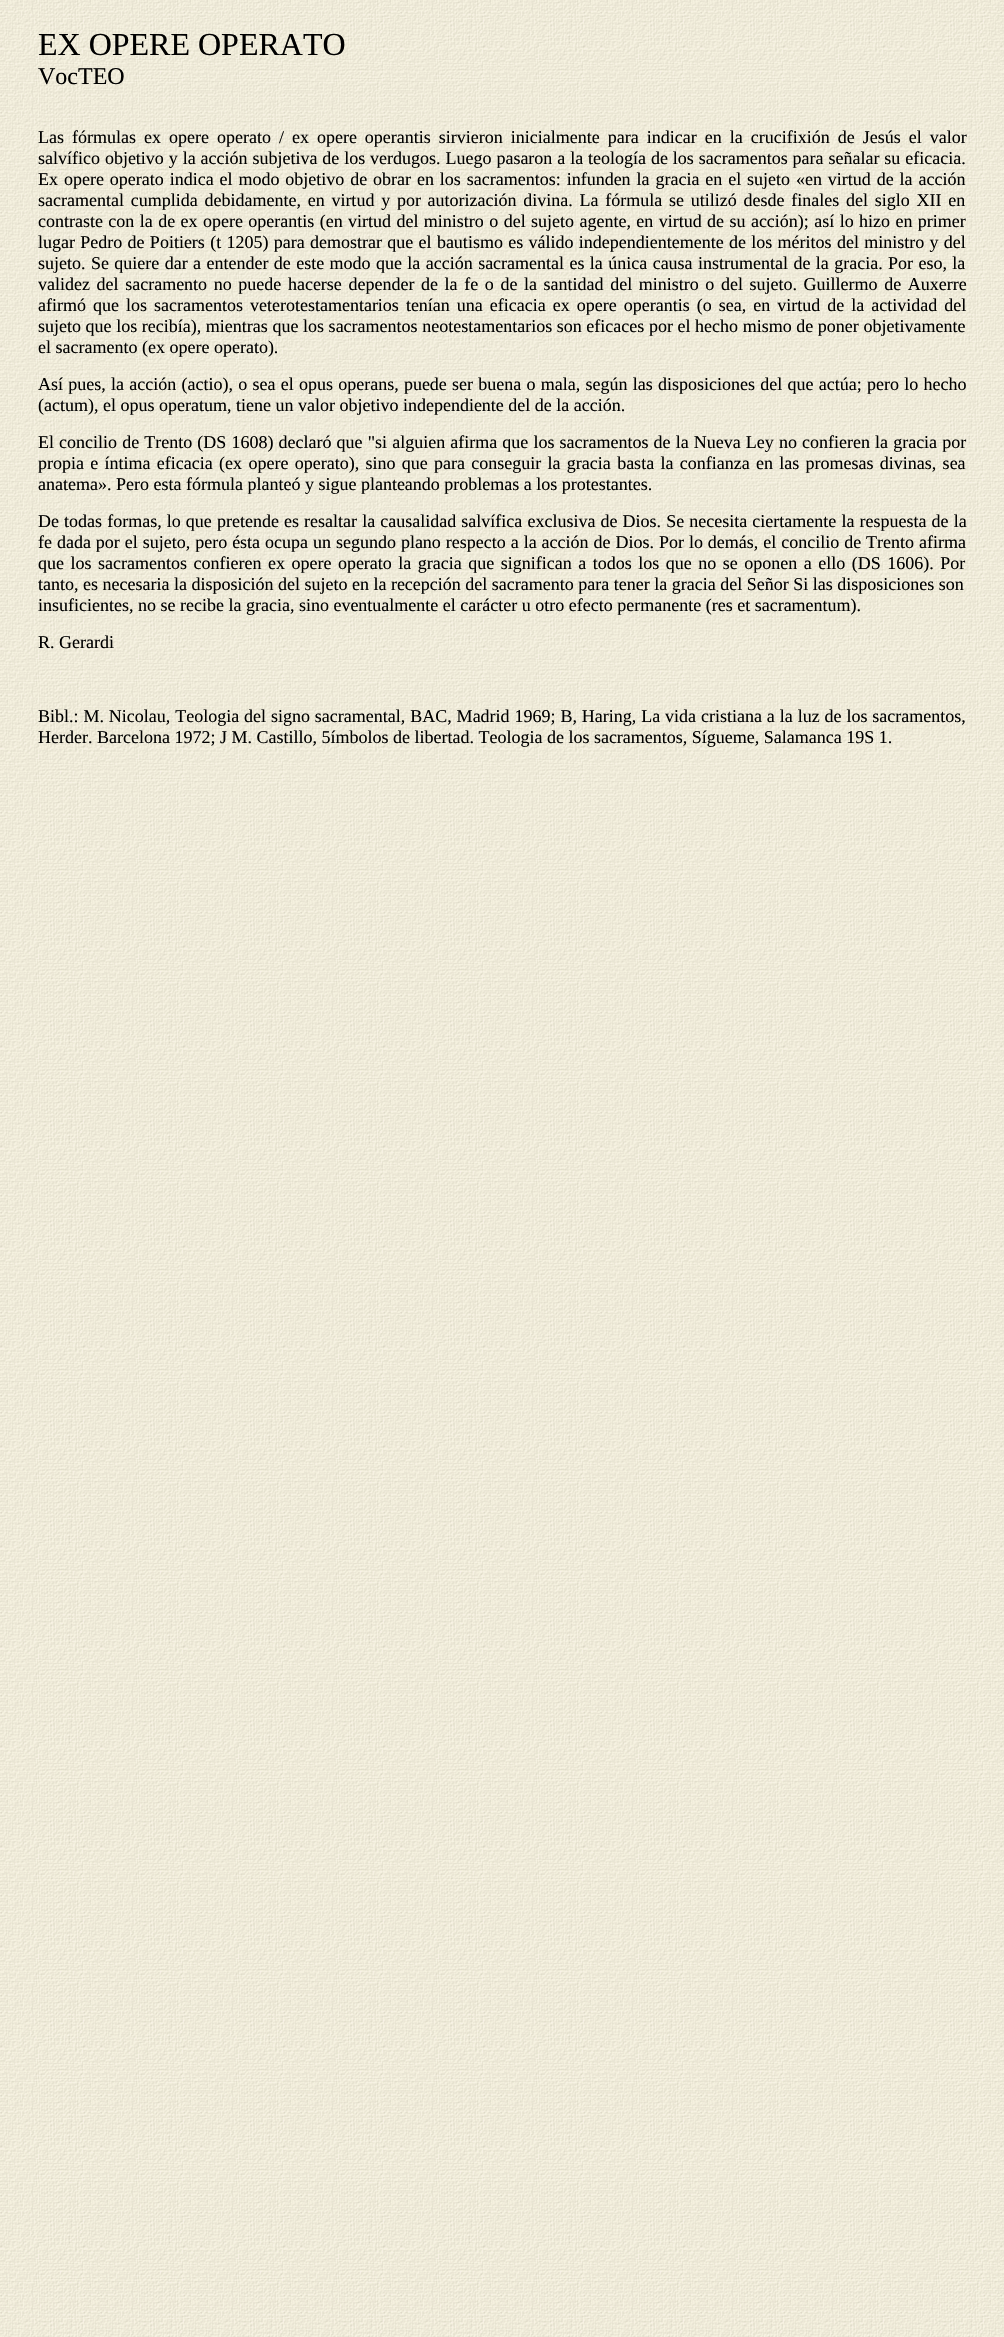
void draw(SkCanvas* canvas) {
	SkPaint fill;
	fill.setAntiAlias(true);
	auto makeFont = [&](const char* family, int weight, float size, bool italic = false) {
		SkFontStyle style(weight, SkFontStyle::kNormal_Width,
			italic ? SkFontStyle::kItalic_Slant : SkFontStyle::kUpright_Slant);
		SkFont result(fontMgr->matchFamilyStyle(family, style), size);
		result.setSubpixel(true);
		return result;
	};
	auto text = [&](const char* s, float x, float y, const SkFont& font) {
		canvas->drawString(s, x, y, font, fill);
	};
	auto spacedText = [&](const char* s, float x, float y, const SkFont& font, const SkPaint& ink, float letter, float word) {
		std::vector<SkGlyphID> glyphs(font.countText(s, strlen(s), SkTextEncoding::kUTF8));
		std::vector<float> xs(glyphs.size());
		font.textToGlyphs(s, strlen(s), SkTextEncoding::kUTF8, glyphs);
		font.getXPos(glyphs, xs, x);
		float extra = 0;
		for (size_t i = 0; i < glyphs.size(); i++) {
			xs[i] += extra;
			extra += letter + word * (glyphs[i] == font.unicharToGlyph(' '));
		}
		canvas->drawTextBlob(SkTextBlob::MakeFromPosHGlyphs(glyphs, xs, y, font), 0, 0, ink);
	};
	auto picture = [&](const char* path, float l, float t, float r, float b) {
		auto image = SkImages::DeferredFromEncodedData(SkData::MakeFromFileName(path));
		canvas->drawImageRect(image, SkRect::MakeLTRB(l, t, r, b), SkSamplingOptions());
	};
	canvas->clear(0xFFFFFFFF);
	picture("image0.png", 0, 0, 1004, 2337);
	auto font1 = makeFont("Liberation Serif", 400, 32);
	fill.setColor(0xFF000000);
	text("EX OPERE OPERATO", 38, 55, font1);
	auto font2 = makeFont("Liberation Serif", 400, 24);
	text("VocTEO", 38, 84, font2);
	auto font3 = makeFont("Liberation Serif", 400, 18);
	spacedText("Las fórmulas ex opere operato / ex opere operantis sirvieron inicialmente para indicar en la crucifixión de Jesús el valor", 38, 143, font3, fill, 0, 3.5f);
	spacedText("salvífico objetivo y la acción subjetiva de los verdugos. Luego pasaron a la teología de los sacramentos para señalar su eficacia.", 38, 164, font3, fill, 0, 0.4f);
	spacedText("Ex opere operato indica el modo objetivo de obrar en los sacramentos: infunden la gracia en el sujeto «en virtud de la acción", 38, 185, font3, fill, 0, 1.4f);
	spacedText("sacramental cumplida debidamente, en virtud y por autorización divina. La fórmula se utilizó desde finales del siglo XII en", 38, 206, font3, fill, 0, 2.25f);
	spacedText("contraste con la de ex opere operantis (en virtud del ministro o del sujeto agente, en virtud de su acción); así lo hizo en primer", 38, 227, font3, fill, 0, 0.9f);
	spacedText("lugar Pedro de Poitiers (t 1205) para demostrar que el bautismo es válido independientemente de los méritos del ministro y del", 38, 248, font3, fill, 0, 0.8f);
	spacedText("sujeto. Se quiere dar a entender de este modo que la acción sacramental es la única causa instrumental de la gracia. Por eso, la", 38, 269, font3, fill, 0, 0.9f);
	spacedText("validez del sacramento no puede hacerse depender de la fe o de la santidad del ministro o del sujeto. Guillermo de Auxerre", 38, 290, font3, fill, 0, 2.1f);
	spacedText("afirmó que los sacramentos veterotestamentarios tenían una eficacia ex opere operantis (o sea, en virtud de la actividad del", 38, 311, font3, fill, 0, 2.5f);
	spacedText("sujeto que los recibía), mientras que los sacramentos neotestamentarios son eficaces por el hecho mismo de poner objetivamente", 38, 332, font3, fill, 0, 0.1f);
	text("el sacramento (ex opere operato).", 38, 353, font3);
	spacedText("Así pues, la acción (actio), o sea el opus operans, puede ser buena o mala, según las disposiciones del que actúa; pero lo hecho", 38, 390, font3, fill, 0, 0.75f);
	text("(actum), el opus operatum, tiene un valor objetivo independiente del de la acción.", 38, 411, font3);
	spacedText("El concilio de Trento (DS 1608) declaró que \"si alguien afirma que los sacramentos de la Nueva Ley no confieren la gracia por", 38, 448, font3, fill, 0, 0.6f);
	spacedText("propia e íntima eficacia (ex opere operato), sino que para conseguir la gracia basta la confianza en las promesas divinas, sea", 38, 469, font3, fill, 0, 1.8f);
	text("anatema». Pero esta fórmula planteó y sigue planteando problemas a los protestantes.", 38, 490, font3);
	spacedText("De todas formas, lo que pretende es resaltar la causalidad salvífica exclusiva de Dios. Se necesita ciertamente la respuesta de la", 38, 527, font3, fill, 0, 0.6f);
	spacedText("fe dada por el sujeto, pero ésta ocupa un segundo plano respecto a la acción de Dios. Por lo demás, el concilio de Trento afirma", 38, 548, font3, fill, 0, 0.45f);
	spacedText("que los sacramentos confieren ex opere operato la gracia que significan a todos los que no se oponen a ello (DS 1606). Por", 38, 569, font3, fill, 0, 2);
	text("tanto, es necesaria la disposición del sujeto en la recepción del sacramento para tener la gracia del Señor Si las disposiciones son", 38, 590, font3);
	text("insuficientes, no se recibe la gracia, sino eventualmente el carácter u otro efecto permanente (res et sacramentum).", 38, 611, font3);
	text("R. Gerardi", 38, 648, font3);
	spacedText("Bibl.: M. Nicolau, Teologia del signo sacramental, BAC, Madrid 1969; B, Haring, La vida cristiana a la luz de los sacramentos,", 38, 722, font3, fill, 0, 0.4f);
	text("Herder. Barcelona 1972; J M. Castillo, 5ímbolos de libertad. Teologia de los sacramentos, Sígueme, Salamanca 19S 1.", 38, 743, font3);
}
